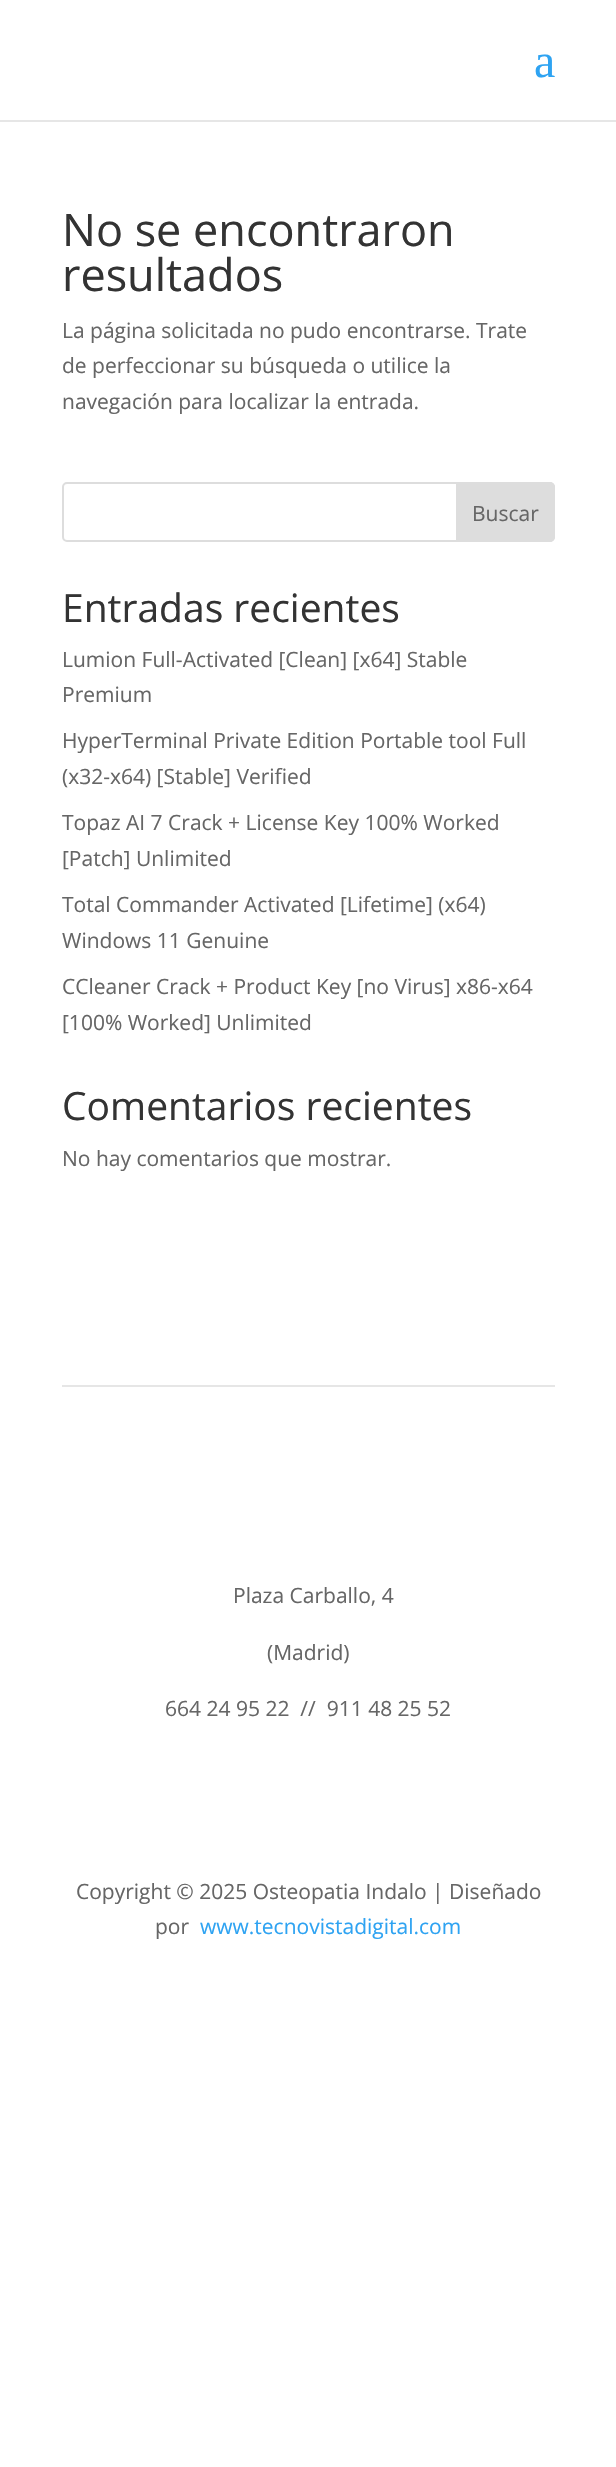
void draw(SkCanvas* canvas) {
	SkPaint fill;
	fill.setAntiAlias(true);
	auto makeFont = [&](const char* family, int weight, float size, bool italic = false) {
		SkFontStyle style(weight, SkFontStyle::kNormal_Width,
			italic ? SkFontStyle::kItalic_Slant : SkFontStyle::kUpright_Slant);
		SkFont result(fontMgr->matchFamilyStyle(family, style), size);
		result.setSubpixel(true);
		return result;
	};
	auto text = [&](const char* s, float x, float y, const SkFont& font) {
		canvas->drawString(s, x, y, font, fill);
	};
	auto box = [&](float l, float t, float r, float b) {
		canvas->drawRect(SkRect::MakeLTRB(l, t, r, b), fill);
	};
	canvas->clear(0xFFFFFFFF);
	fill.setColor(0xFFE6E6E6);
	canvas->drawPath(SkPathBuilder().moveTo(0, 120).lineTo(0, 122).lineTo(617, 122).lineTo(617, 2).lineTo(616, 2).lineTo(616, 120).close().detach(), fill);
	fill.setStyle(SkPaint::kStroke_Style);
	fill.setStrokeWidth(2);
	fill.setColor(0xFFDDDDDD);
	canvas->drawRoundRect(SkRect::MakeLTRB(63, 483, 554, 541), 4, 4, fill);
	fill.setStyle(SkPaint::kFill_Style);
	canvas->drawPath(SkPathBuilder().moveTo(457, 483).lineTo(550, 483).cubicTo(552, 483, 554, 485, 554, 487).lineTo(554, 537).cubicTo(554, 539, 552, 541, 550, 541).lineTo(457, 541).close().detach(), fill);
	fill.setStyle(SkPaint::kStroke_Style);
	canvas->drawPath(SkPathBuilder().moveTo(457, 483).lineTo(550, 483).cubicTo(552, 483, 554, 485, 554, 487).lineTo(554, 537).cubicTo(554, 539, 552, 541, 550, 541).lineTo(457, 541).close().detach(), fill);
	fill.setStyle(SkPaint::kFill_Style);
	fill.setColor(0xFFE6E6E6);
	box(62, 1385, 555, 1387);
	auto font1 = makeFont("Liberation Serif", 400, 48);
	fill.setColor(0xFF2EA3F2);
	text("a", 534, 77, font1);
	auto font2 = makeFont("Open Sans", 400, 45);
	fill.setColor(0xFF333333);
	text("No se encontraron", 62, 246, font2);
	text("resultados", 62, 291, font2);
	auto font3 = makeFont("Open Sans", 400, 21);
	fill.setColor(0xFF666666);
	text("La página solicitada no pudo encontrarse. Trate", 62, 338, font3);
	text("de perfeccionar su búsqueda o utilice la", 62, 373, font3);
	text("navegación para localizar la entrada.", 62, 409, font3);
	text("Buscar", 472, 521, font3);
	auto font4 = makeFont("Open Sans", 400, 39);
	fill.setColor(0xFF333333);
	text("Entradas recientes", 62, 622, font4);
	fill.setColor(0xFF666666);
	text("Lumion Full-Activated [Clean] [x64] Stable", 62, 667, font3);
	text("Premium", 62, 702, font3);
	text("HyperTerminal Private Edition Portable tool Full", 62, 748, font3);
	text("(x32-x64) [Stable] Verified", 62, 784, font3);
	text("Topaz AI 7 Crack + License Key 100% Worked", 62, 830, font3);
	text("[Patch] Unlimited", 62, 866, font3);
	text("Total Commander Activated [Lifetime] (x64)", 62, 912, font3);
	text("Windows 11 Genuine", 62, 948, font3);
	text("CCleaner Crack + Product Key [no Virus] x86-x64", 62, 994, font3);
	text("[100% Worked] Unlimited", 62, 1030, font3);
	fill.setColor(0xFF333333);
	text("Comentarios recientes", 62, 1120, font4);
	fill.setColor(0xFF666666);
	text("No hay comentarios que mostrar.", 62, 1166, font3);
	text("Plaza Carballo, 4", 233, 1603, font3);
	text("(Madrid)", 267, 1660, font3);
	text("664 24 95 22  //  911 48 25 52", 165, 1716, font3);
	text("Copyright © 2025 Osteopatia Indalo | Diseñado", 76, 1899, font3);
	text("por", 155, 1934, font3);
	fill.setColor(0xFF2EA3F2);
	text("www.tecnovistadigital.com", 200, 1934, font3);
}
